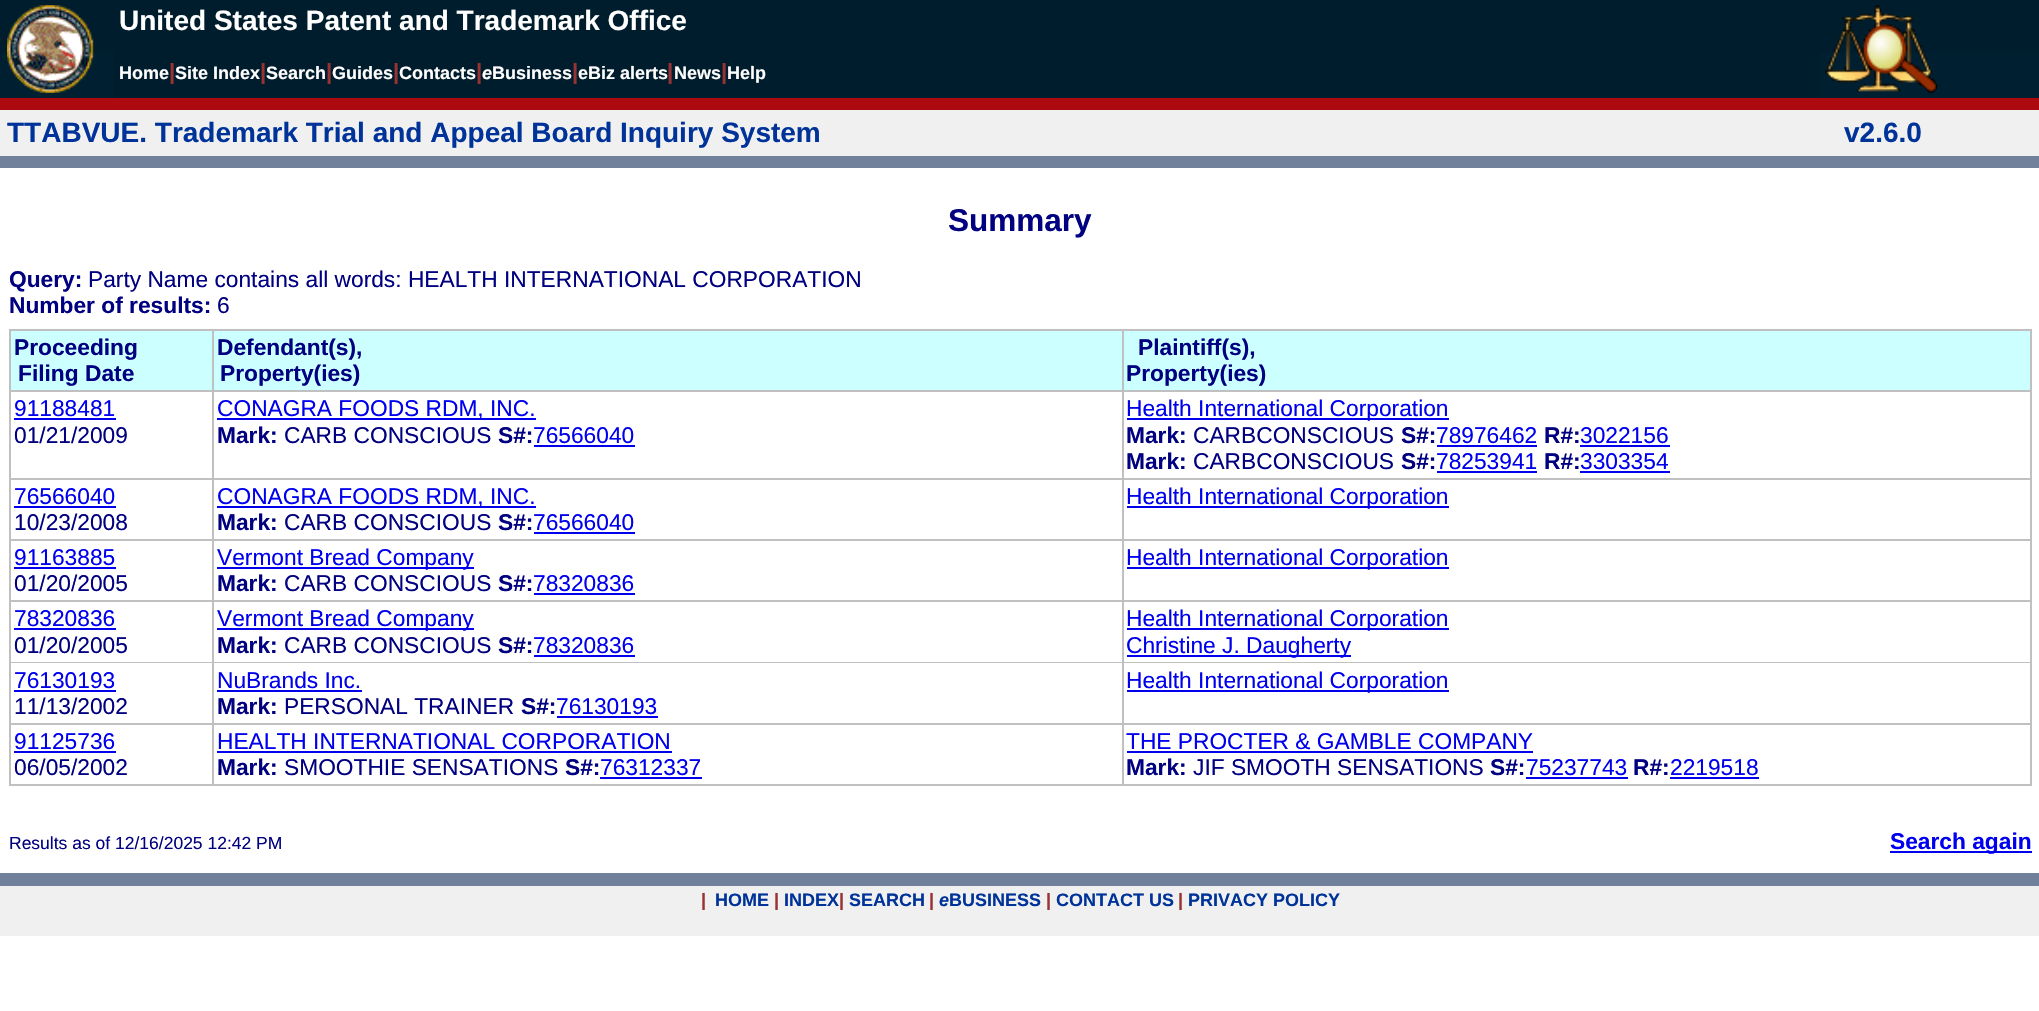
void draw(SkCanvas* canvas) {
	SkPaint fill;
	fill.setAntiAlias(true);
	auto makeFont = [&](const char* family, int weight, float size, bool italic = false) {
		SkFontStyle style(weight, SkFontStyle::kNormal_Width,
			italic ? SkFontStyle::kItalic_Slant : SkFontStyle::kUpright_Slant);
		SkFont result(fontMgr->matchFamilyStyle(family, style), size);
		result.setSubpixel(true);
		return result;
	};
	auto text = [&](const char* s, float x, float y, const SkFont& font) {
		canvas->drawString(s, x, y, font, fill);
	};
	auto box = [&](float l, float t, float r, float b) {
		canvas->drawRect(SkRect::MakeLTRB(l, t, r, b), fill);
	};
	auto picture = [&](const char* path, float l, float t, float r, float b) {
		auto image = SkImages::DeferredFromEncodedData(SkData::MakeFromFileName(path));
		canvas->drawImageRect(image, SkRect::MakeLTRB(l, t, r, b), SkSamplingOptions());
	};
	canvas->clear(0xFFFFFFFF);
	fill.setColor(0xFF001D2D);
	box(0, 0, 2039, 53);
	fill.setColor(0xFF002032);
	box(0, 53, 2039, 98);
	picture("image0.png", 7, 5, 94, 93);
	picture("image1.png", 1825, 5, 1938, 93);
	fill.setColor(0xFF001D2D);
	box(114, 53, 1820, 98);
	fill.setColor(0xFFAC0911);
	box(0, 98, 2039, 110);
	fill.setColor(0xFFF0F0F0);
	box(0, 110, 2039, 156);
	fill.setColor(0xFF71819B);
	box(0, 156, 2039, 168);
	fill.setColor(0xFFC0C0C0);
	box(9, 329, 2032, 786);
	fill.setColor(0xFFCCFFFF);
	box(11, 331, 212, 390);
	box(214, 331, 1122, 390);
	box(1124, 331, 2030, 390);
	fill.setColor(0xFFFFFFFF);
	box(11, 392, 212, 478);
	fill.setColor(0xFF0000EE);
	box(14, 418, 116, 420);
	fill.setColor(0xFFFFFFFF);
	box(214, 392, 1122, 478);
	fill.setColor(0xFF0000EE);
	box(217, 418, 536, 420);
	box(534, 445, 635, 447);
	fill.setColor(0xFFFFFFFF);
	box(1124, 392, 2030, 478);
	fill.setColor(0xFF0000EE);
	box(1127, 418, 1449, 420);
	box(1437, 445, 1537, 447);
	box(1580, 445, 1670, 447);
	box(1437, 471, 1537, 473);
	box(1580, 471, 1670, 473);
	fill.setColor(0xFFFFFFFF);
	box(11, 480, 212, 539);
	fill.setColor(0xFF0000EE);
	box(14, 506, 116, 508);
	fill.setColor(0xFFFFFFFF);
	box(214, 480, 1122, 539);
	fill.setColor(0xFF0000EE);
	box(217, 506, 536, 508);
	box(534, 532, 635, 534);
	fill.setColor(0xFFFFFFFF);
	box(1124, 480, 2030, 539);
	fill.setColor(0xFF0000EE);
	box(1127, 506, 1449, 508);
	fill.setColor(0xFFFFFFFF);
	box(11, 541, 212, 600);
	fill.setColor(0xFF0000EE);
	box(14, 567, 116, 569);
	fill.setColor(0xFFFFFFFF);
	box(214, 541, 1122, 600);
	fill.setColor(0xFF0000EE);
	box(217, 567, 474, 569);
	box(534, 593, 635, 595);
	fill.setColor(0xFFFFFFFF);
	box(1124, 541, 2030, 600);
	fill.setColor(0xFF0000EE);
	box(1127, 567, 1449, 569);
	fill.setColor(0xFFFFFFFF);
	box(11, 602, 212, 662);
	fill.setColor(0xFF0000EE);
	box(14, 628, 116, 630);
	fill.setColor(0xFFFFFFFF);
	box(214, 602, 1122, 662);
	fill.setColor(0xFF0000EE);
	box(217, 628, 474, 630);
	box(534, 655, 635, 657);
	fill.setColor(0xFFFFFFFF);
	box(1124, 602, 2030, 662);
	fill.setColor(0xFF0000EE);
	box(1127, 628, 1449, 630);
	box(1127, 655, 1351, 657);
	fill.setColor(0xFFFFFFFF);
	box(11, 663, 212, 723);
	fill.setColor(0xFF0000EE);
	box(14, 690, 116, 692);
	fill.setColor(0xFFFFFFFF);
	box(214, 663, 1122, 723);
	fill.setColor(0xFF0000EE);
	box(217, 690, 362, 692);
	box(557, 716, 658, 718);
	fill.setColor(0xFFFFFFFF);
	box(1124, 663, 2030, 723);
	fill.setColor(0xFF0000EE);
	box(1127, 690, 1449, 692);
	fill.setColor(0xFFFFFFFF);
	box(11, 725, 212, 784);
	fill.setColor(0xFF0000EE);
	box(14, 751, 116, 753);
	fill.setColor(0xFFFFFFFF);
	box(214, 725, 1122, 784);
	fill.setColor(0xFF0000EE);
	box(217, 751, 672, 753);
	box(600, 777, 702, 779);
	fill.setColor(0xFFFFFFFF);
	box(1124, 725, 2030, 784);
	fill.setColor(0xFF0000EE);
	box(1127, 751, 1533, 753);
	box(1526, 777, 1628, 779);
	box(1670, 777, 1759, 779);
	box(1890, 851, 2032, 853);
	fill.setColor(0xFF71819B);
	box(0, 873, 2039, 886);
	fill.setColor(0xFFF0F0F0);
	box(0, 886, 2039, 936);
	auto font1 = makeFont("Liberation Sans", 700, 28);
	fill.setColor(0xFFFFFFFF);
	text("United States Patent and Trademark Office", 119, 30, font1);
	auto font2 = makeFont("Liberation Sans", 700, 18);
	text("Home", 119, 79, font2);
	auto font3 = makeFont("Liberation Sans", 700, 22);
	fill.setColor(0xFF993333);
	text("|", 169, 79, font3);
	fill.setColor(0xFFFFFFFF);
	text("Site Index", 175, 79, font2);
	fill.setColor(0xFF993333);
	text("|", 260, 79, font3);
	fill.setColor(0xFFFFFFFF);
	text("Search", 266, 79, font2);
	fill.setColor(0xFF993333);
	text("|", 326, 79, font3);
	fill.setColor(0xFFFFFFFF);
	text("Guides", 332, 79, font2);
	fill.setColor(0xFF993333);
	text("|", 393, 79, font3);
	fill.setColor(0xFFFFFFFF);
	text("Contacts", 399, 79, font2);
	fill.setColor(0xFF993333);
	text("|", 476, 79, font3);
	auto font4 = makeFont("Liberation Sans", 700, 18, true);
	fill.setColor(0xFFFFFFFF);
	text("e", 482, 79, font4);
	text("Business", 492, 79, font2);
	fill.setColor(0xFF993333);
	text("|", 572, 79, font3);
	fill.setColor(0xFFFFFFFF);
	text("eBiz alerts", 578, 79, font2);
	fill.setColor(0xFF993333);
	text("|", 667, 79, font3);
	fill.setColor(0xFFFFFFFF);
	text("News", 674, 79, font2);
	fill.setColor(0xFF993333);
	text("|", 721, 79, font3);
	fill.setColor(0xFFFFFFFF);
	text("Help", 727, 79, font2);
	fill.setColor(0xFF003399);
	text("TTABVUE. Trademark Trial and Appeal Board Inquiry System", 7, 142, font1);
	text("v2.6.0", 1844, 142, font1);
	auto font5 = makeFont("Liberation Sans", 700, 31.5f);
	fill.setColor(0xFF000080);
	text("Summary", 948, 231, font5);
	auto font6 = makeFont("Liberation Sans", 700, 22.75f);
	text("Query:", 9, 287, font6);
	auto font7 = makeFont("Liberation Sans", 400, 22.75f);
	text("Party Name contains all words: HEALTH INTERNATIONAL CORPORATION", 88, 287, font7);
	text("Number of results:", 9, 313, font6);
	text("6", 217, 313, font7);
	text("Proceeding", 14, 355, font6);
	text("Filing Date", 18, 381, font6);
	text("Defendant(s),", 217, 355, font6);
	text("Property(ies)", 220, 381, font6);
	text("Plaintiff(s),", 1138, 355, font6);
	text("Property(ies)", 1126, 381, font6);
	fill.setColor(0xFF0000EE);
	text("91188481", 14, 416, font7);
	fill.setColor(0xFF000080);
	text("01/21/2009", 14, 443, font7);
	fill.setColor(0xFF0000EE);
	text("CONAGRA FOODS RDM, INC.", 217, 416, font7);
	fill.setColor(0xFF000080);
	text("Mark:", 217, 443, font6);
	text("CARB CONSCIOUS", 284, 443, font7);
	text("S#:", 498, 443, font6);
	fill.setColor(0xFF0000EE);
	text("76566040", 533, 443, font7);
	text("Health International Corporation", 1126, 416, font7);
	fill.setColor(0xFF000080);
	text("Mark:", 1126, 443, font6);
	text("CARBCONSCIOUS", 1193, 443, font7);
	text("S#:", 1401, 443, font6);
	fill.setColor(0xFF0000EE);
	text("78976462", 1436, 443, font7);
	fill.setColor(0xFF000080);
	text("R#:", 1544, 443, font6);
	fill.setColor(0xFF0000EE);
	text("3022156", 1580, 443, font7);
	fill.setColor(0xFF000080);
	text("Mark:", 1126, 469, font6);
	text("CARBCONSCIOUS", 1193, 469, font7);
	text("S#:", 1401, 469, font6);
	fill.setColor(0xFF0000EE);
	text("78253941", 1436, 469, font7);
	fill.setColor(0xFF000080);
	text("R#:", 1544, 469, font6);
	fill.setColor(0xFF0000EE);
	text("3303354", 1580, 469, font7);
	text("76566040", 14, 504, font7);
	fill.setColor(0xFF000080);
	text("10/23/2008", 14, 530, font7);
	fill.setColor(0xFF0000EE);
	text("CONAGRA FOODS RDM, INC.", 217, 504, font7);
	fill.setColor(0xFF000080);
	text("Mark:", 217, 530, font6);
	text("CARB CONSCIOUS", 284, 530, font7);
	text("S#:", 498, 530, font6);
	fill.setColor(0xFF0000EE);
	text("76566040", 533, 530, font7);
	text("Health International Corporation", 1126, 504, font7);
	text("91163885", 14, 565, font7);
	fill.setColor(0xFF000080);
	text("01/20/2005", 14, 591, font7);
	fill.setColor(0xFF0000EE);
	text("Vermont Bread Company", 217, 565, font7);
	fill.setColor(0xFF000080);
	text("Mark:", 217, 591, font6);
	text("CARB CONSCIOUS", 284, 591, font7);
	text("S#:", 498, 591, font6);
	fill.setColor(0xFF0000EE);
	text("78320836", 533, 591, font7);
	text("Health International Corporation", 1126, 565, font7);
	text("78320836", 14, 626, font7);
	fill.setColor(0xFF000080);
	text("01/20/2005", 14, 653, font7);
	fill.setColor(0xFF0000EE);
	text("Vermont Bread Company", 217, 626, font7);
	fill.setColor(0xFF000080);
	text("Mark:", 217, 653, font6);
	text("CARB CONSCIOUS", 284, 653, font7);
	text("S#:", 498, 653, font6);
	fill.setColor(0xFF0000EE);
	text("78320836", 533, 653, font7);
	text("Health International Corporation", 1126, 626, font7);
	text("Christine J. Daugherty", 1126, 653, font7);
	text("76130193", 14, 688, font7);
	fill.setColor(0xFF000080);
	text("11/13/2002", 14, 714, font7);
	fill.setColor(0xFF0000EE);
	text("NuBrands Inc.", 217, 688, font7);
	fill.setColor(0xFF000080);
	text("Mark:", 217, 714, font6);
	text("PERSONAL TRAINER", 284, 714, font7);
	text("S#:", 521, 714, font6);
	fill.setColor(0xFF0000EE);
	text("76130193", 556, 714, font7);
	text("Health International Corporation", 1126, 688, font7);
	text("91125736", 14, 749, font7);
	fill.setColor(0xFF000080);
	text("06/05/2002", 14, 775, font7);
	fill.setColor(0xFF0000EE);
	text("HEALTH INTERNATIONAL CORPORATION", 217, 749, font7);
	fill.setColor(0xFF000080);
	text("Mark:", 217, 775, font6);
	text("SMOOTHIE SENSATIONS", 284, 775, font7);
	text("S#:", 565, 775, font6);
	fill.setColor(0xFF0000EE);
	text("76312337", 600, 775, font7);
	text("THE PROCTER & GAMBLE COMPANY", 1126, 749, font7);
	fill.setColor(0xFF000080);
	text("Mark:", 1126, 775, font6);
	text("JIF SMOOTH SENSATIONS", 1193, 775, font7);
	text("S#:", 1490, 775, font6);
	fill.setColor(0xFF0000EE);
	text("75237743", 1526, 775, font7);
	fill.setColor(0xFF000080);
	text("R#:", 1633, 775, font6);
	fill.setColor(0xFF0000EE);
	text("2219518", 1670, 775, font7);
	auto font8 = makeFont("Liberation Sans", 400, 17.5f);
	fill.setColor(0xFF000080);
	text("Results as of 12/16/2025 12:42 PM", 9, 849, font8);
	fill.setColor(0xFF0000EE);
	text("Search again", 1890, 849, font6);
	fill.setColor(0xFF993333);
	text("|", 701, 906, font2);
	fill.setColor(0xFF003399);
	text("HOME", 715, 906, font2);
	fill.setColor(0xFF993333);
	text("|", 774, 906, font2);
	fill.setColor(0xFF003399);
	text("INDEX", 784, 906, font2);
	fill.setColor(0xFF993333);
	text("|", 839, 906, font2);
	fill.setColor(0xFF003399);
	text("SEARCH", 849, 906, font2);
	fill.setColor(0xFF993333);
	text("|", 929, 906, font2);
	fill.setColor(0xFF003399);
	text("e", 939, 906, font4);
	text("BUSINESS", 949, 906, font2);
	fill.setColor(0xFF993333);
	text("|", 1046, 906, font2);
	fill.setColor(0xFF003399);
	text("CONTACT US", 1056, 906, font2);
	fill.setColor(0xFF993333);
	text("|", 1178, 906, font2);
	fill.setColor(0xFF003399);
	text("PRIVACY POLICY", 1188, 906, font2);
}
